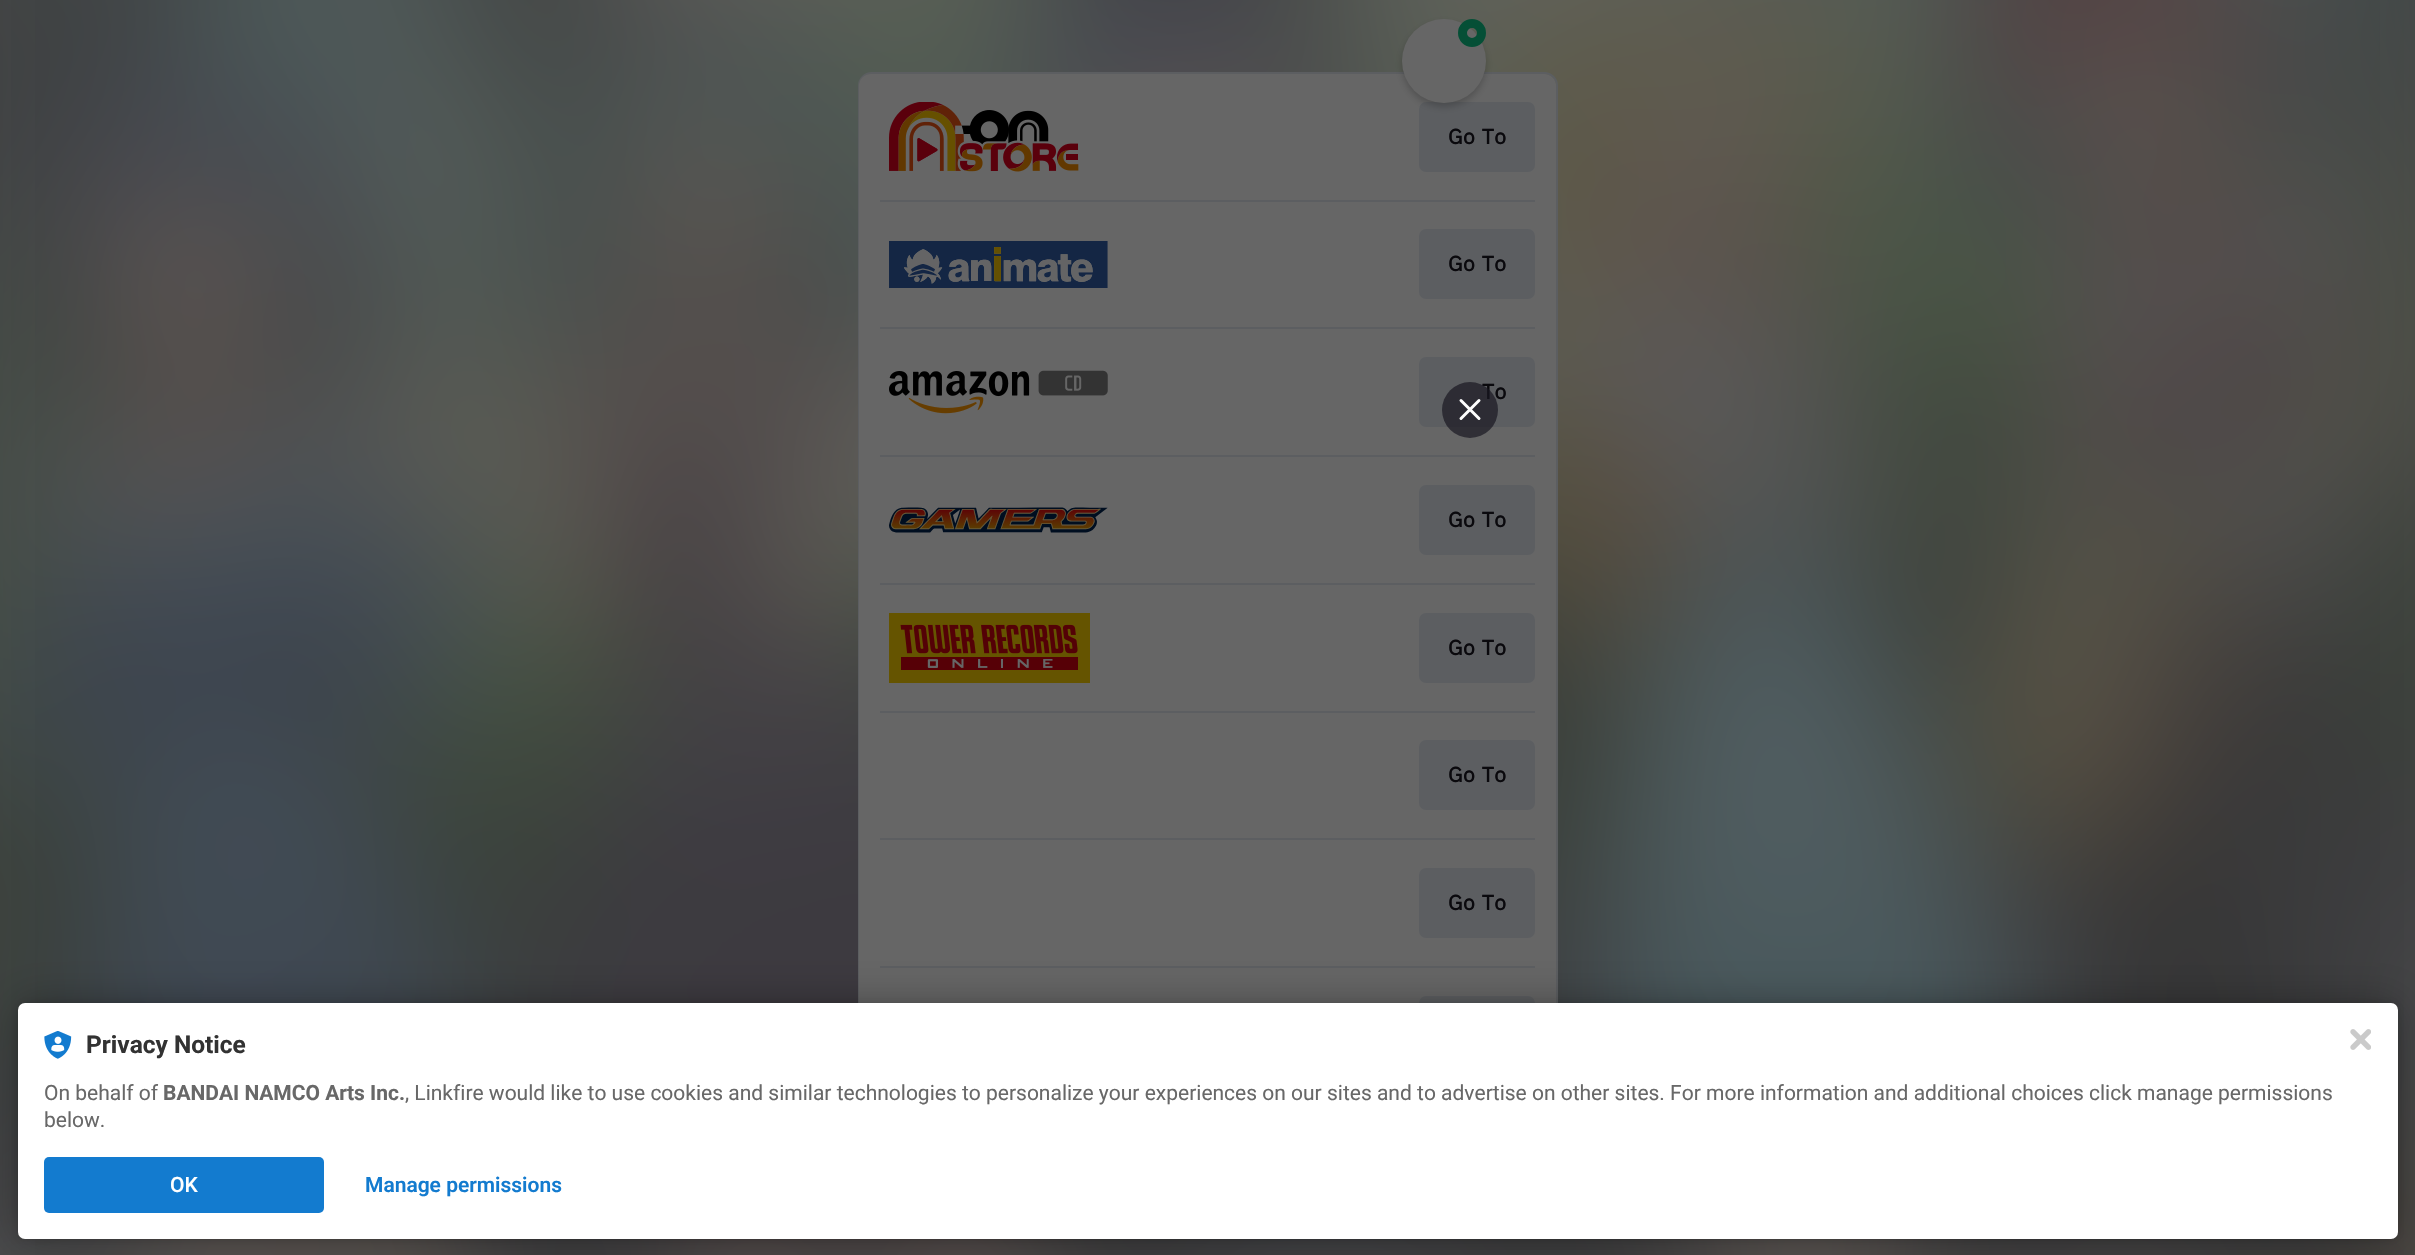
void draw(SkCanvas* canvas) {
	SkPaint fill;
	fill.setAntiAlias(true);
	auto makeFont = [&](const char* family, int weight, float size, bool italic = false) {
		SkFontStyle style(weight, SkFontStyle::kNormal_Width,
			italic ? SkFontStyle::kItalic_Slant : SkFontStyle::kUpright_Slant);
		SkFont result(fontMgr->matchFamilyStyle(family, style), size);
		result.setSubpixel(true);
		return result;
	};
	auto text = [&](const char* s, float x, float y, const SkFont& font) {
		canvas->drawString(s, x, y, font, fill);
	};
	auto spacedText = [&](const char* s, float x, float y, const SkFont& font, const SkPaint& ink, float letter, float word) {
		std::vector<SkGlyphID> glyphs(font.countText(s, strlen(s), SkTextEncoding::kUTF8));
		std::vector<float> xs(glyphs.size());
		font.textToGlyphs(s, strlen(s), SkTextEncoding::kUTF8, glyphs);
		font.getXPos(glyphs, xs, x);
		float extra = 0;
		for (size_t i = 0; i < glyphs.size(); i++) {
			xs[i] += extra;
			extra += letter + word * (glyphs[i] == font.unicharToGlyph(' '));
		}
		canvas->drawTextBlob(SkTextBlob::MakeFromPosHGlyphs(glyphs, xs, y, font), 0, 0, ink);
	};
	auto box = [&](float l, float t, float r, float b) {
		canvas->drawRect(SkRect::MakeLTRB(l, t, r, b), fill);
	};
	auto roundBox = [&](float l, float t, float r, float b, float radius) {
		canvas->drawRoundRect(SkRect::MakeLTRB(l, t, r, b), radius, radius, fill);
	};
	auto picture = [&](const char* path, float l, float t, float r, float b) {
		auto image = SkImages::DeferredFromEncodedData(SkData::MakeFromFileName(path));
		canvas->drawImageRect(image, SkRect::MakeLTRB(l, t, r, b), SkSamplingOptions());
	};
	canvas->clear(0xFF666666);
	picture("image0.png", 0, 0, 2415, 1255);
	fill.setStyle(SkPaint::kStroke_Style);
	fill.setStrokeWidth(2);
	fill.setColor(0xFF5C5E61);
	canvas->drawRoundRect(SkRect::MakeLTRB(859, 73, 1557, 1095), 13, 13, fill);
	fill.setStyle(SkPaint::kFill_Style);
	fill.setColor(0xFF666666);
	roundBox(859, 74, 1556, 1094, 12);
	fill.setColor(0xFF5C5E61);
	roundBox(1419, 102, 1535, 172, 7);
	fill.setColor(0x33000000);
	fill.setMaskFilter(SkMaskFilter::MakeBlur(kNormal_SkBlurStyle, 3.5f));
	canvas->drawRoundRect(SkRect::MakeLTRB(1402, 23, 1486, 107), 42, 42, fill);
	fill.setMaskFilter(nullptr);
	fill.setColor(0xFF666666);
	canvas->drawCircle(1444, 61, 42, fill);
	fill.setStyle(SkPaint::kStroke_Style);
	fill.setStrokeWidth(9);
	fill.setColor(0xFF054F36);
	canvas->drawCircle(1472, 33, 9.5f, fill);
	picture("image1.png", 889, 102, 1079, 172);
	fill.setStyle(SkPaint::kFill_Style);
	fill.setColor(0xFF5C5E61);
	box(880, 200, 1535, 202);
	picture("image2.png", 889, 241, 1108, 288);
	roundBox(1419, 229, 1535, 299, 7);
	box(880, 327, 1535, 329);
	picture("image3.png", 889, 370, 1108, 414);
	roundBox(1419, 357, 1535, 427, 7);
	box(880, 455, 1535, 457);
	picture("image4.png", 889, 507, 1108, 533);
	roundBox(1419, 485, 1535, 555, 7);
	box(880, 583, 1535, 585);
	picture("image5.png", 889, 613, 1090, 683);
	roundBox(1419, 613, 1535, 683, 7);
	box(880, 711, 1535, 713);
	roundBox(1419, 740, 1535, 810, 7);
	box(880, 838, 1535, 840);
	roundBox(1419, 868, 1535, 938, 7);
	box(880, 966, 1535, 968);
	roundBox(1419, 996, 1535, 1066, 7);
	fill.setColor(0x1F000000);
	fill.setMaskFilter(SkMaskFilter::MakeBlur(kNormal_SkBlurStyle, 3.5f));
	canvas->drawRoundRect(SkRect::MakeLTRB(18, 1003, 2398, 1239), 7, 7, fill);
	fill.setMaskFilter(nullptr);
	fill.setColor(0x4D000000);
	fill.setMaskFilter(SkMaskFilter::MakeBlur(kNormal_SkBlurStyle, 21));
	canvas->drawRoundRect(SkRect::MakeLTRB(18, 1003, 2398, 1239), 7, 7, fill);
	fill.setMaskFilter(nullptr);
	fill.setColor(0xFFFFFFFF);
	roundBox(18, 1003, 2398, 1239, 7);
	picture("image6.png", 44, 1031, 72, 1059);
	fill.setColor(0xFF137BCF);
	roundBox(44, 1157, 324, 1213, 5);
	picture("image7.png", 2350, 1029, 2371, 1050);
	auto font1 = makeFont("IBM Plex Sans", 700, 21);
	fill.setColor(0xFF0A090D);
	spacedText("Go To", 1448, 144, font1, fill, 0.5f, 1);
	spacedText("Go To", 1448, 271, font1, fill, 0.5f, 1);
	spacedText("To", 1482, 399, font1, fill, 0.5f, 1);
	fill.setColor(0xB3181721);
	canvas->drawCircle(1470, 410, 28, fill);
	fill.setStyle(SkPaint::kStroke_Style);
	fill.setStrokeWidth(3);
	fill.setStrokeCap(SkPaint::kRound_Cap);
	fill.setStrokeJoin(SkPaint::kRound_Join);
	fill.setColor(0xFFFFFFFF);
	canvas->drawPath(SkPathBuilder().moveTo(1461, 400.5f).lineTo(1479, 418.5f).moveTo(1461, 418.5f).lineTo(1479, 400.5f).detach(), fill);
	fill.setStyle(SkPaint::kFill_Style);
	fill.setColor(0xFF0A090D);
	spacedText("Go To", 1448, 527, font1, fill, 0.5f, 1);
	spacedText("Go To", 1448, 655, font1, fill, 0.5f, 1);
	spacedText("Go To", 1448, 782, font1, fill, 0.5f, 1);
	spacedText("Go To", 1448, 910, font1, fill, 0.5f, 1);
	auto font2 = makeFont("Roboto", 700, 24.5f);
	fill.setColor(0xFF323232);
	text("Privacy Notice", 86, 1053, font2);
	auto font3 = makeFont("Roboto", 400, 21);
	fill.setColor(0xFF686868);
	text("On behalf of", 44, 1100, font3);
	auto font4 = makeFont("Roboto", 700, 21);
	text("BANDAI NAMCO Arts Inc.", 163, 1100, font4);
	text(", Linkfire would like to use cookies and similar technologies to personalize your experiences on our sites and to advertise on other sites. For more information and additional choices click manage permissions", 405, 1100, font3);
	text("below.", 44, 1127, font3);
	auto font5 = makeFont("Roboto", 500, 21);
	fill.setColor(0xFFFFFFFF);
	text("OK", 170, 1192, font5);
	auto font6 = makeFont("Roboto", 600, 21);
	fill.setColor(0xFF137BCF);
	text("Manage permissions", 365, 1192, font6);
}
